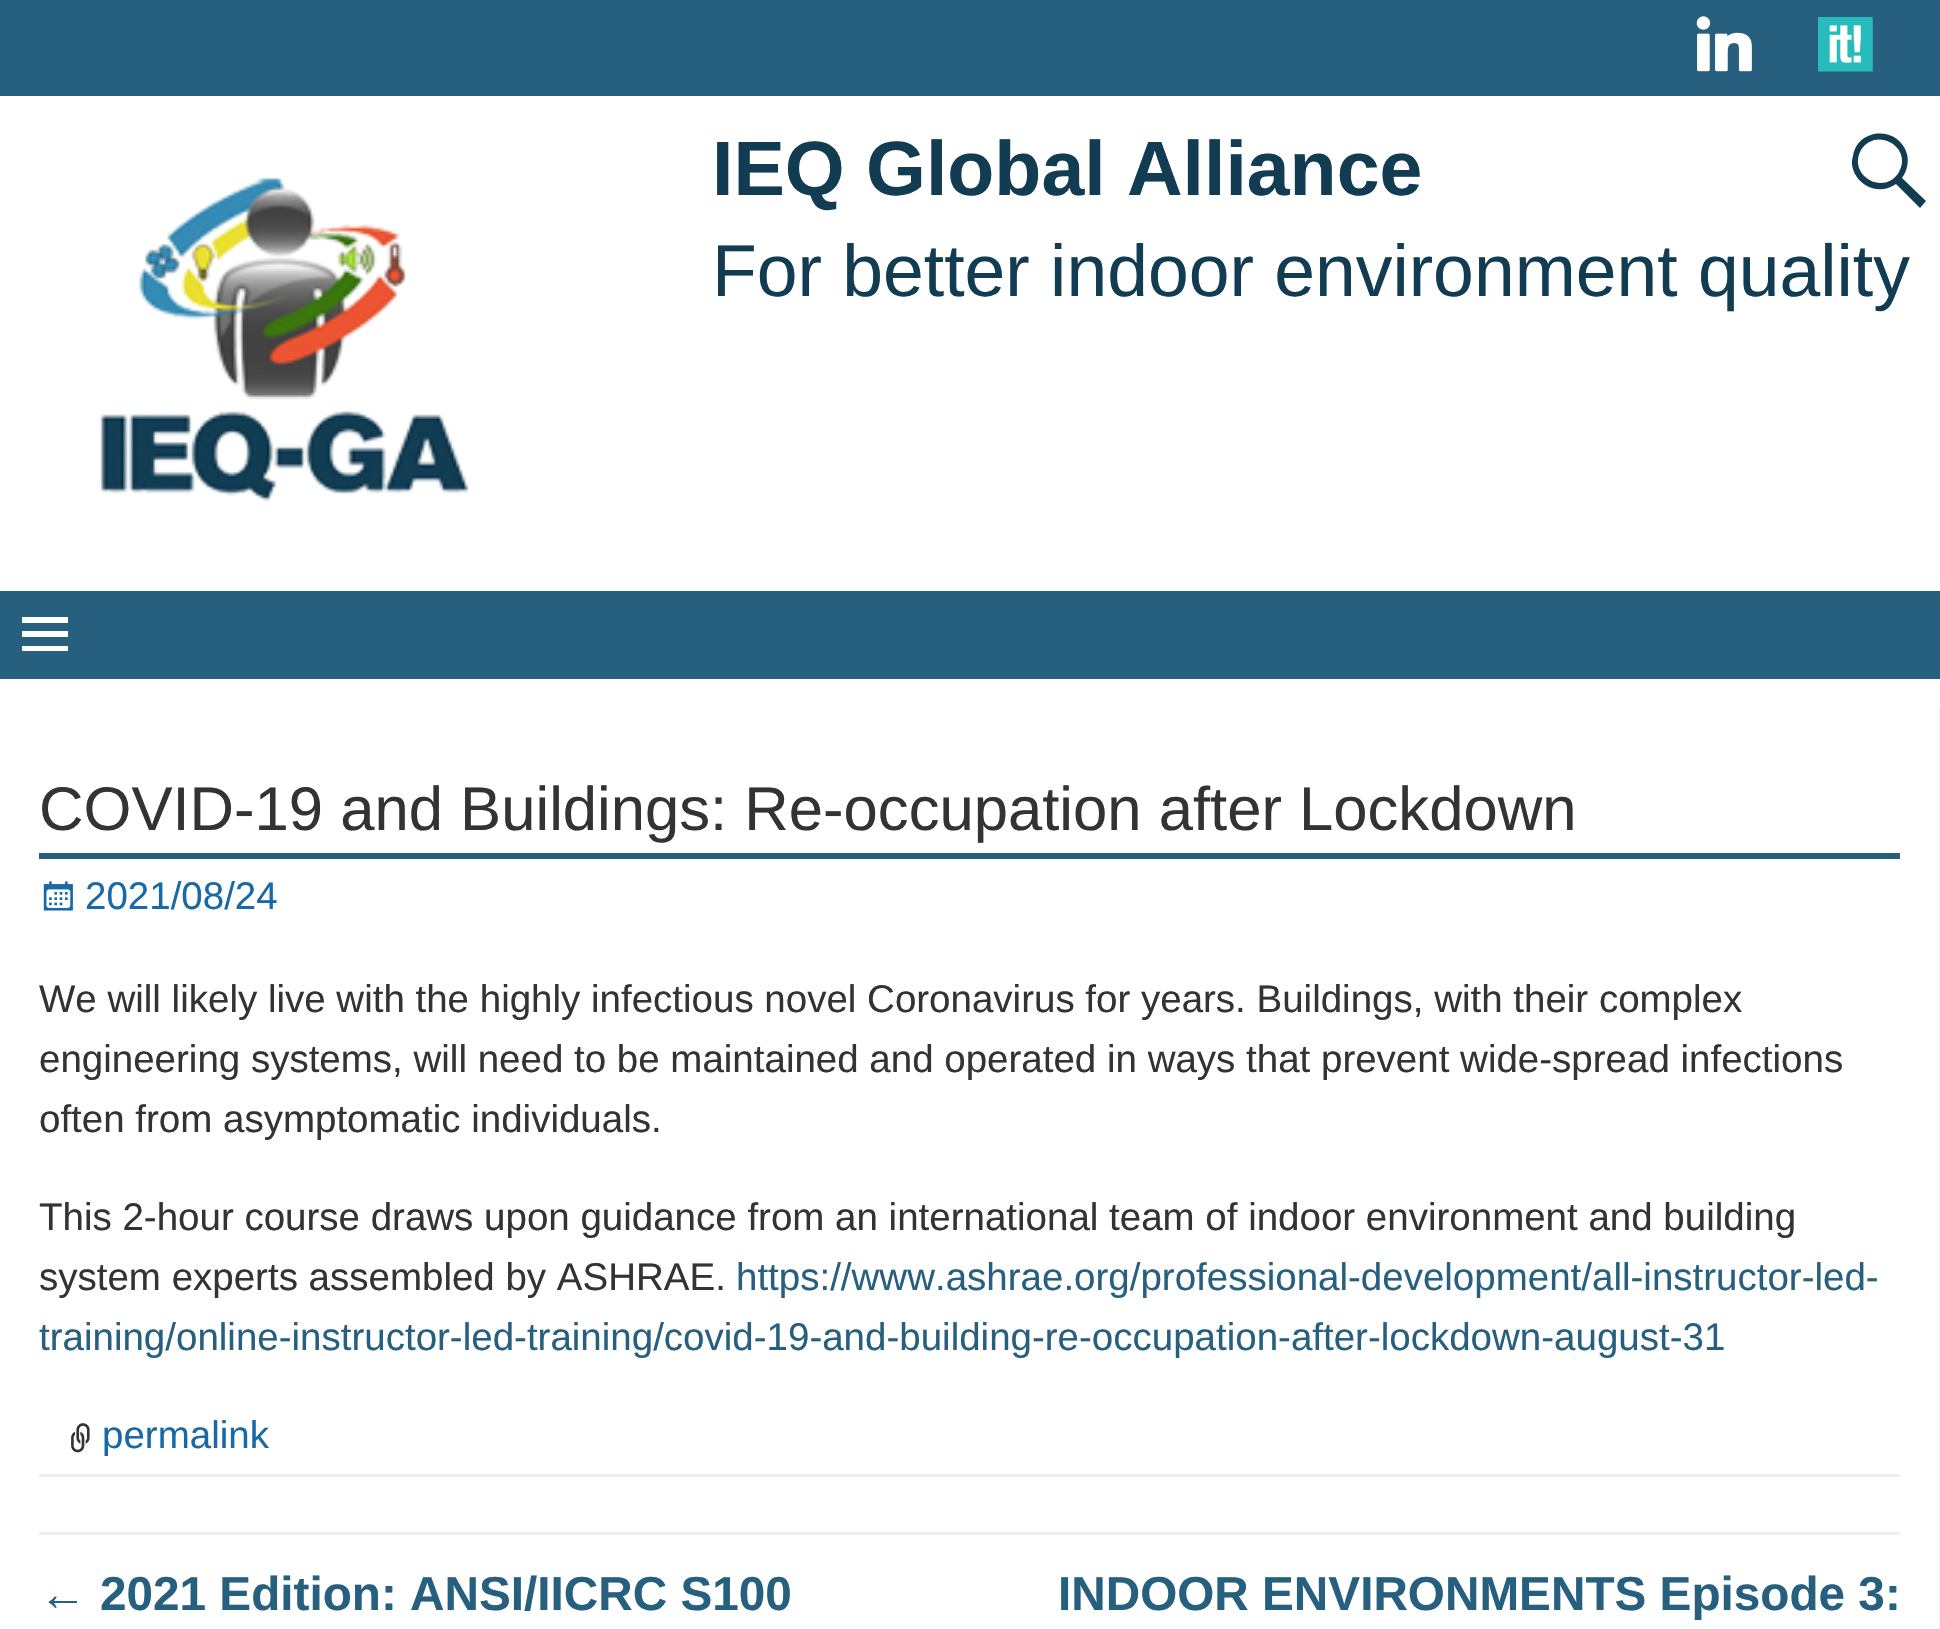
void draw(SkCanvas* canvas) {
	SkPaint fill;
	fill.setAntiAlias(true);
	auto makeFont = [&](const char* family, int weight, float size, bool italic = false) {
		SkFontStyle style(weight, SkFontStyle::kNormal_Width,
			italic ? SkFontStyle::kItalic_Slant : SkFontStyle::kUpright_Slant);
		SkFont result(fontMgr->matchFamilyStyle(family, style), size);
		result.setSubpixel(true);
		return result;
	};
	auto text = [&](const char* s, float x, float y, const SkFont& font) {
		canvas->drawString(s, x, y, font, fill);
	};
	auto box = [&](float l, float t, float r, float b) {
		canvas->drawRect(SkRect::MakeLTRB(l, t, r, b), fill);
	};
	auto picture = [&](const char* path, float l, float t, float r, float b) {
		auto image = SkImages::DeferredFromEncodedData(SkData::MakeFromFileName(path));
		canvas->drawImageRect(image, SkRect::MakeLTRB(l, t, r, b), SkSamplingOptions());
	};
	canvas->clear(0xFFFFFFFF);
	fill.setColor(0xFF27607F);
	box(0, 0, 1940, 96);
	picture("image0.png", 1696, 16, 1752, 72);
	picture("image1.png", 1818, 17, 1873, 72);
	picture("image2.png", 98, 178, 469, 502);
	fill.setColor(0xFF123C52);
	canvas->drawPath(SkPathBuilder().moveTo(1926, 201).lineTo(1920, 208).lineTo(1896, 184).cubicTo(1882, 194, 1863, 189, 1855, 174).cubicTo(1852, 168, 1851, 162, 1853, 156).cubicTo(1858, 127, 1899, 126, 1907, 154).cubicTo(1909, 162, 1907, 171, 1902, 178).close().moveTo(1861, 150).cubicTo(1847, 175, 1884, 197, 1899, 172).cubicTo(1913, 147, 1876, 126, 1861, 150).close().detach(), fill);
	fill.setColor(0xFF27607F);
	box(0, 591, 1940, 679);
	fill.setColor(0xFFFFFFFF);
	canvas->drawPath(SkPathBuilder().moveTo(22, 651).lineTo(22, 646).lineTo(68, 646).lineTo(68, 651).close().moveTo(22, 617).lineTo(68, 617).lineTo(68, 623).lineTo(22, 623).close().moveTo(22, 637).lineTo(22, 631).lineTo(68, 631).lineTo(68, 637).close().detach(), fill);
	fill.setColor(0xFFEFEFEF);
	box(1939, 707, 1940, 1629);
	box(39, 1474, 1900, 1477);
	fill.setColor(0xFF27607F);
	box(39, 853, 1900, 859);
	picture("image3.png", 43, 881, 73, 911);
	picture("image4.png", 71, 1423, 90, 1453);
	fill.setColor(0xFFEFEFEF);
	box(39, 1532, 1900, 1535);
	auto font1 = makeFont("Liberation Sans", 700, 77);
	fill.setColor(0xFF123C52);
	text("IEQ Global Alliance", 712, 195, font1);
	auto font2 = makeFont("Liberation Sans", 400, 73.3f);
	text("For better indoor environment quality", 712, 296, font2);
	auto font3 = makeFont("Liberation Sans", 400, 61.6f);
	fill.setColor(0xFF333333);
	text("COVID-19 and Buildings: Re-occupation after Lockdown", 39, 830, font3);
	auto font4 = makeFont("Liberation Sans", 400, 38.5f);
	fill.setColor(0xFF1969A7);
	text("2021/08/24", 85, 909, font4);
	fill.setColor(0xFF333333);
	text("We will likely live with the highly infectious novel Coronavirus for years. Buildings, with their complex", 39, 1012, font4);
	text("engineering systems, will need to be maintained and operated in ways that prevent wide-spread infections", 39, 1072, font4);
	text("often from asymptomatic individuals.", 39, 1132, font4);
	text("This 2-hour course draws upon guidance from an international team of indoor environment and building", 39, 1230, font4);
	text("system experts assembled by ASHRAE.", 39, 1290, font4);
	fill.setColor(0xFF27607F);
	text("https://www.ashrae.org/professional-development/all-instructor-led-", 736, 1290, font4);
	text("training/online-instructor-led-training/covid-19-and-building-re-occupation-after-lockdown-august-31", 39, 1350, font4);
	fill.setColor(0xFF1969A7);
	text("permalink", 102, 1448, font4);
	auto font5 = makeFont("Liberation Sans", 400, 47.7f);
	fill.setColor(0xFF27607F);
	text("←", 39, 1610, font5);
	auto font6 = makeFont("Liberation Sans", 700, 47.7f);
	text("2021 Edition: ANSI/IICRC S100", 100, 1610, font6);
	text("INDOOR ENVIRONMENTS Episode 3:", 1058, 1610, font6);
}
